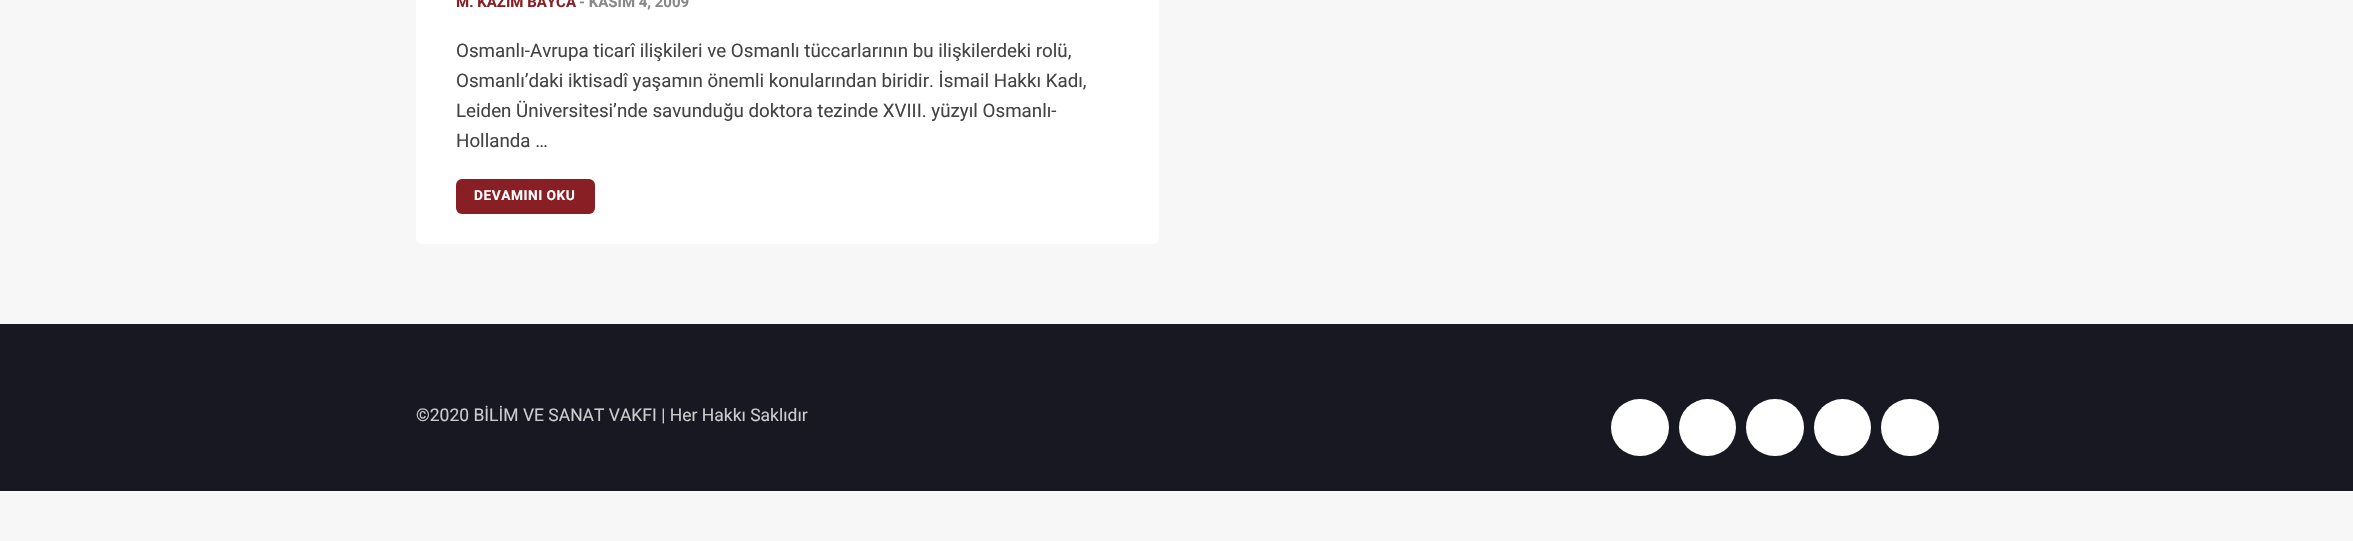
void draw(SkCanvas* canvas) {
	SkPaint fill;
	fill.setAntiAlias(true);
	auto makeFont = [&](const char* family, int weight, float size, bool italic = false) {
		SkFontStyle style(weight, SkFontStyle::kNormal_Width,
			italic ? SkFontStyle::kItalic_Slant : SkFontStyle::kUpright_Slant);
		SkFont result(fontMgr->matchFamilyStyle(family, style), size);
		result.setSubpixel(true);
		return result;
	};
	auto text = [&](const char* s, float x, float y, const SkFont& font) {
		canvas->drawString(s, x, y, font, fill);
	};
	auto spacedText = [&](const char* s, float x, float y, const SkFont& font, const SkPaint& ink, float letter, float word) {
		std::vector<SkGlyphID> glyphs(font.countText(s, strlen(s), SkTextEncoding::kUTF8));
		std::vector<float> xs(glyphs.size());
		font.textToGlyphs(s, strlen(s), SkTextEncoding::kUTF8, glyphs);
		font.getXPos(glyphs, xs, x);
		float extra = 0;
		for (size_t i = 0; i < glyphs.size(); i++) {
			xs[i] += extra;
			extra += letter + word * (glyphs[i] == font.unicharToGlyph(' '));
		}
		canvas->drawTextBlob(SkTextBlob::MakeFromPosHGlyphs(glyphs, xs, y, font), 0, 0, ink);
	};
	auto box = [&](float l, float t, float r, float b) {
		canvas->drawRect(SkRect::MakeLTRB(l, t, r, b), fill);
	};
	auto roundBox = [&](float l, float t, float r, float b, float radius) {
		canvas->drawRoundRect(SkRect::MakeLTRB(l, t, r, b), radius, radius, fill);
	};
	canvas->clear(0xFFF7F7F7);
	fill.setColor(0xFFFFFFFF);
	roundBox(416, -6, 1159, 244, 6);
	fill.setColor(0xFF871F24);
	roundBox(456, 179, 595, 214, 6);
	fill.setColor(0xFF171821);
	box(0, 324, 2353, 491);
	fill.setColor(0xFFFFFFFF);
	roundBox(1611, 399, 1669, 456, 28.5f);
	canvas->drawCircle(1707.5f, 427.5f, 28.5f, fill);
	roundBox(1746, 399, 1804, 456, 28.5f);
	canvas->drawCircle(1842.5f, 427.5f, 28.5f, fill);
	roundBox(1881, 399, 1939, 456, 28.5f);
	auto font1 = makeFont("Roboto", 700, 15);
	fill.setColor(0xFF871F24);
	text("M. KAZIM BAYCA", 456, 7, font1);
	fill.setColor(0xFF888888);
	text("- KASIM 4, 2009", 579, 7, font1);
	auto font2 = makeFont("Roboto", 400, 18.75f);
	fill.setColor(0xFF444444);
	text("Osmanlı-Avrupa ticarî ilişkileri ve Osmanlı tüccarlarının bu ilişkilerdeki rolü,", 456, 57, font2);
	text("Osmanlı’daki iktisadî yaşamın önemli konularından biridir. İsmail Hakkı Kadı,", 456, 87, font2);
	text("Leiden Üniversitesi’nde savunduğu doktora tezinde XVIII. yüzyıl Osmanlı-", 456, 117, font2);
	text("Hollanda …", 456, 147, font2);
	auto font3 = makeFont("Roboto", 700, 13.75f);
	fill.setColor(0xFFFFFFFF);
	spacedText("DEVAMINI OKU", 474, 200, font3, fill, 0.5f, 0);
	auto font4 = makeFont("Roboto", 400, 17.5f);
	fill.setColor(0xFFCCCCCC);
	text("©2020 BİLİM VE SANAT VAKFI | Her Hakkı Saklıdır", 416, 421, font4);
}
